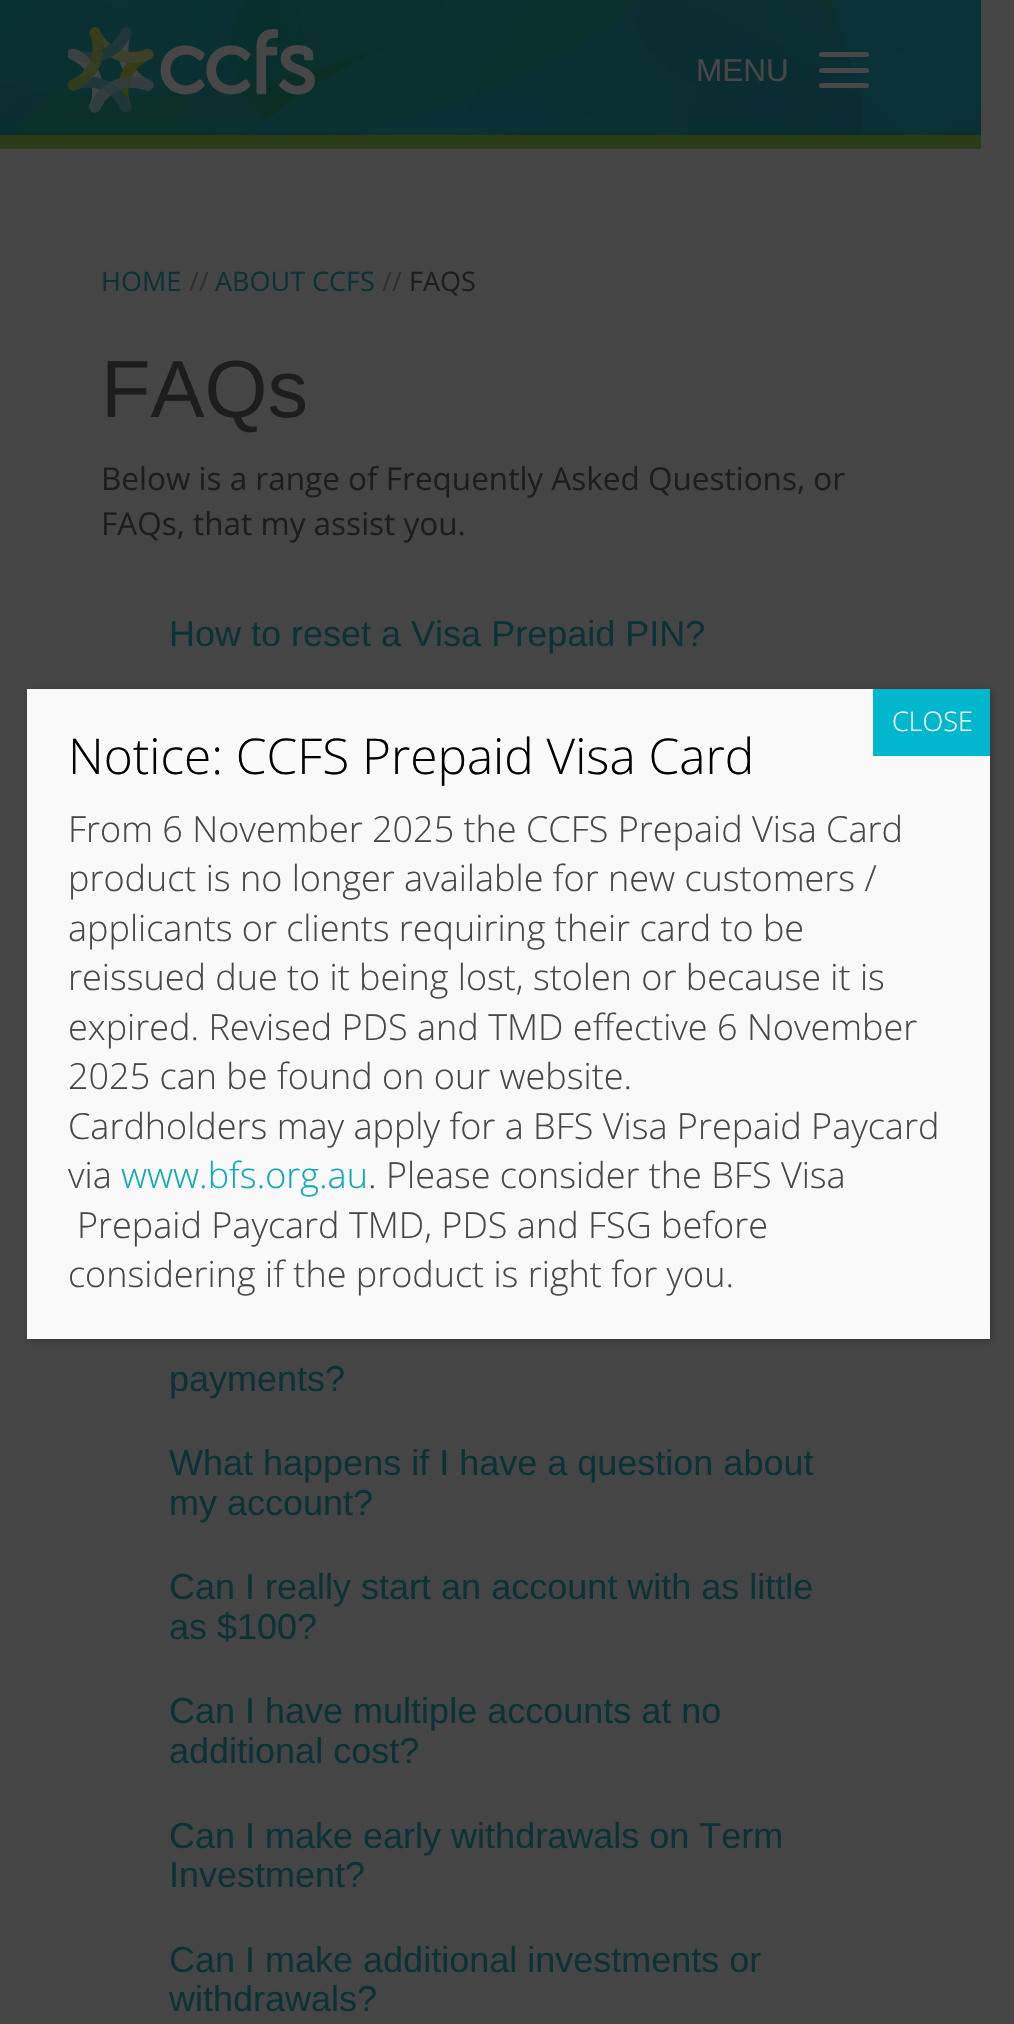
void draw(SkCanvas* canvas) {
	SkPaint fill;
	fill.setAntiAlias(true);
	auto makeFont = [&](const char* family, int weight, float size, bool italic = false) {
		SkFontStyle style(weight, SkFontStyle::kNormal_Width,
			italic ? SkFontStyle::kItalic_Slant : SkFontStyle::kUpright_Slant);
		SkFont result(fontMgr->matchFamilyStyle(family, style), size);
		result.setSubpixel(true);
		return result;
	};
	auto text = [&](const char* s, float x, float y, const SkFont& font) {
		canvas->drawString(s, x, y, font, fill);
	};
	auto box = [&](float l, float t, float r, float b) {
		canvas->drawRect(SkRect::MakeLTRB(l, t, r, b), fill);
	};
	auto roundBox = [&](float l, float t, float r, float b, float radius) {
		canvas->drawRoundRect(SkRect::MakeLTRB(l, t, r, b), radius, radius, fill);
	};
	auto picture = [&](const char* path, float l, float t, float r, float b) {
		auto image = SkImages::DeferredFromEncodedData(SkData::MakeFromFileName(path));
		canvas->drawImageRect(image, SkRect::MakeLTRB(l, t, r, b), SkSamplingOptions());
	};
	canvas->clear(0xFF454545);
	picture("image0.png", 0, 0, 981, 135);
	fill.setColor(0xFF2A3C17);
	box(0, 135, 981, 149);
	picture("image1.png", 68, 27, 315, 113);
	fill.setColor(0xFF474747);
	roundBox(819, 52, 869, 57, 2.5f);
	roundBox(819, 68, 869, 73, 2.5f);
	roundBox(819, 83, 869, 88, 2.5f);
	fill.setColor(0x3B020202);
	fill.setMaskFilter(SkMaskFilter::MakeBlur(kNormal_SkBlurStyle, 3.5f));
	canvas->drawRect(SkRect::MakeLTRB(29, 691, 992, 1341), fill);
	fill.setMaskFilter(nullptr);
	fill.setColor(0xFFF9F9F9);
	box(27, 689, 990, 1339);
	fill.setColor(0xFF00B7CD);
	box(873, 689, 990, 756);
	auto font1 = makeFont("Liberation Sans", 400, 31.5f);
	fill.setColor(0xFF474747);
	text("MENU", 696, 81, font1);
	auto font2 = makeFont("Open Sans", 400, 27);
	fill.setColor(0xFF0B3236);
	text("HOME", 101, 291, font2);
	fill.setColor(0xFF2F2F2F);
	text("//", 189, 291, font2);
	fill.setColor(0xFF0B3236);
	text("ABOUT CCFS", 215, 291, font2);
	fill.setColor(0xFF2F2F2F);
	text("//", 382, 291, font2);
	fill.setColor(0xFF1D1D1D);
	text("FAQS", 409, 291, font2);
	auto font3 = makeFont("Liberation Sans", 400, 81);
	text("FAQs", 101, 417, font3);
	auto font4 = makeFont("Open Sans", 400, 31.5f);
	text("Below is a range of Frequently Asked Questions, or", 101, 490, font4);
	text("FAQs, that my assist you.", 101, 535, font4);
	auto font5 = makeFont("Liberation Sans", 400, 36);
	fill.setColor(0xFF0B3236);
	text("How to reset a Visa Prepaid PIN?", 169, 646, font5);
	text("payments?", 169, 1391, font5);
	text("What happens if I have a question about", 169, 1475, font5);
	text("my account?", 169, 1515, font5);
	text("Can I really start an account with as little", 169, 1599, font5);
	text("as $100?", 169, 1639, font5);
	text("Can I have multiple accounts at no", 169, 1723, font5);
	text("additional cost?", 169, 1763, font5);
	text("Can I make early withdrawals on Term", 169, 1848, font5);
	text("Investment?", 169, 1887, font5);
	text("Can I make additional investments or", 169, 1972, font5);
	text("withdrawals?", 169, 2011, font5);
	auto font6 = makeFont("Open Sans", 300, 27);
	fill.setColor(0xFFFFFFFF);
	text("CLOSE", 892, 731, font6);
	auto font7 = makeFont("Open Sans", 300, 49.5f);
	fill.setColor(0xFF000000);
	text("Notice: CCFS Prepaid Visa Card", 68, 774, font7);
	auto font8 = makeFont("Open Sans", 300, 36);
	fill.setColor(0xFF474747);
	text("From 6 November 2025 the CCFS Prepaid Visa Card", 68, 842, font8);
	text("product is no longer available for new customers /", 68, 891, font8);
	text("applicants or clients requiring their card to be", 68, 941, font8);
	text("reissued due to it being lost, stolen or because it is", 68, 990, font8);
	text("expired. Revised PDS and TMD effective 6 November", 68, 1040, font8);
	text("2025 can be found on our website.", 68, 1089, font8);
	text("Cardholders may apply for a BFS Visa Prepaid Paycard", 68, 1139, font8);
	text("via", 68, 1188, font8);
	fill.setColor(0xFF0DA9B9);
	text("www.bfs.org.au", 121, 1188, font8);
	fill.setColor(0xFF474747);
	text(". Please consider the BFS Visa", 368, 1188, font8);
	text("Prepaid Paycard TMD, PDS and FSG before", 77, 1238, font8);
	text("considering if the product is right for you.", 68, 1287, font8);
}
